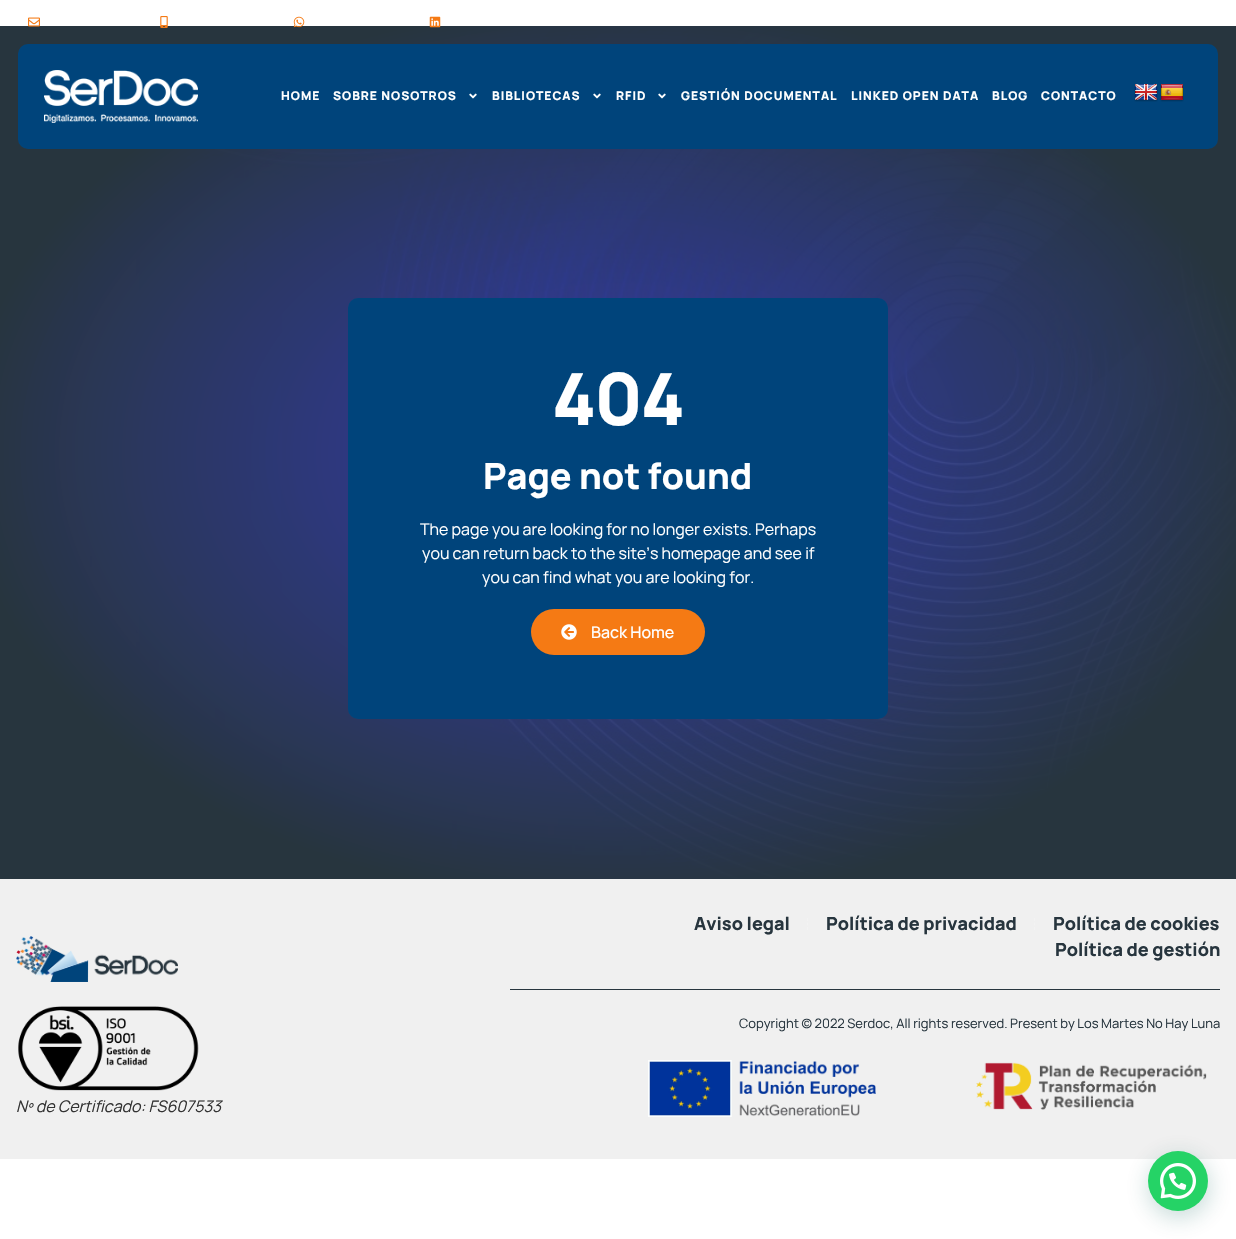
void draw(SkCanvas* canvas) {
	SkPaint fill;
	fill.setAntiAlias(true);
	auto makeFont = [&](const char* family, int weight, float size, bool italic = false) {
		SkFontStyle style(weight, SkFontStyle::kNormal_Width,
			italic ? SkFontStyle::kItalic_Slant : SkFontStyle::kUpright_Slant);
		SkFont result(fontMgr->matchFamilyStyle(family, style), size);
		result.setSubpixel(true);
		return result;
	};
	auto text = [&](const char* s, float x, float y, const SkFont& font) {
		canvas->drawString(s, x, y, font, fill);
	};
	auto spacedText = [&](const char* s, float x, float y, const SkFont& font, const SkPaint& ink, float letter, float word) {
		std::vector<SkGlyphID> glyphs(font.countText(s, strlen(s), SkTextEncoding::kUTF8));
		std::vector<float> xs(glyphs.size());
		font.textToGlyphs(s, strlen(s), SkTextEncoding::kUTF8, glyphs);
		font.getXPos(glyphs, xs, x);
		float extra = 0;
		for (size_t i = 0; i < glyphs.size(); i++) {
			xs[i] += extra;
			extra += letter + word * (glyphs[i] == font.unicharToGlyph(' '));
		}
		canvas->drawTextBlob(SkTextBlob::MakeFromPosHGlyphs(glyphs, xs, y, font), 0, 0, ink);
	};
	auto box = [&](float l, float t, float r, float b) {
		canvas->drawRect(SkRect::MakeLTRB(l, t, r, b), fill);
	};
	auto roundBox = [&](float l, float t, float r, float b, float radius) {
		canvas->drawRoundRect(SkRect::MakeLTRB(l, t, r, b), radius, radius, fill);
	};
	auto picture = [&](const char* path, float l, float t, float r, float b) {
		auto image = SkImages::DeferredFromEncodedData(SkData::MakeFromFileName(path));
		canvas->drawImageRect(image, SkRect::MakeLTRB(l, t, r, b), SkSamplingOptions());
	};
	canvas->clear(0xFFFFFFFF);
	picture("image8.png", 0, 26, 1236, 879);
	picture("image0.png", 28, 17, 40, 27);
	picture("image1.png", 160, 16, 168, 28);
	picture("image2.png", 293, 16, 305, 28);
	picture("image3.png", 429, 16, 441, 28);
	fill.setColor(0xFF00447B);
	roundBox(18, 44, 1218, 149, 10);
	picture("image4.png", 44, 70, 198, 123);
	picture("image5.png", 469, 93, 477, 99);
	picture("image5.png", 593, 93, 601, 99);
	picture("image5.png", 658, 93, 666, 99);
	picture("image6.png", 1134, 84, 1158, 102);
	picture("image7.png", 1160, 84, 1184, 102);
	roundBox(348, 298, 888, 719, 10);
	fill.setColor(0xFFF57A14);
	roundBox(531, 609, 705, 655, 23);
	picture("image9.png", 561, 624, 577, 640);
	fill.setColor(0xFFF0F0F0);
	box(0, 879, 1236, 1159);
	fill.setStyle(SkPaint::kStroke_Style);
	fill.setStrokeWidth(1);
	fill.setColor(0xFFF3F3F3);
	canvas->drawPath(SkPathBuilder().moveTo(807.5f, 918).lineTo(807.5f, 921).moveTo(807.5f, 922.5f).lineTo(807.5f, 925.5f).moveTo(807.5f, 927).lineTo(807.5f, 930).detach(), fill);
	canvas->drawPath(SkPathBuilder().moveTo(1034.5f, 918).lineTo(1034.5f, 921).moveTo(1034.5f, 922.5f).lineTo(1034.5f, 925.5f).moveTo(1034.5f, 927).lineTo(1034.5f, 930).detach(), fill);
	fill.setStyle(SkPaint::kFill_Style);
	fill.setColor(0xFF27353E);
	box(510, 989, 1220, 990);
	picture("image10.png", 648, 1060, 876, 1117);
	picture("image11.png", 976, 1062, 1207, 1110);
	picture("image12.png", 16, 936, 178, 982);
	picture("image13.png", 18, 1006, 199, 1091);
	fill.setColor(0x3D075E54);
	fill.setMaskFilter(SkMaskFilter::MakeBlur(kNormal_SkBlurStyle, 12));
	canvas->drawRoundRect(SkRect::MakeLTRB(1149, 1157, 1209, 1217), 30, 30, fill);
	fill.setMaskFilter(nullptr);
	fill.setColor(0xFF25D366);
	canvas->drawCircle(1178, 1181, 30, fill);
	picture("image14.png", 1160, 1163, 1196, 1199);
	auto font1 = makeFont("Manrope", 800, 12);
	fill.setColor(0xFFFFFFFF);
	spacedText("HOME", 281, 100, font1, fill, 1, 0);
	spacedText("SOBRE NOSOTROS", 333, 100, font1, fill, 1, 0);
	spacedText("BIBLIOTECAS", 492, 100, font1, fill, 1, 0);
	spacedText("RFID", 616, 100, font1, fill, 1, 0);
	spacedText("GESTIÓN DOCUMENTAL", 681, 100, font1, fill, 1, 0);
	spacedText("LINKED OPEN DATA", 851, 100, font1, fill, 1, 0);
	spacedText("BLOG", 992, 100, font1, fill, 1, 0);
	spacedText("CONTACTO", 1041, 100, font1, fill, 1, 0);
	auto font2 = makeFont("Manrope", 800, 72);
	spacedText("404", 552, 425, font2, fill, -2, 0);
	auto font3 = makeFont("Manrope", 800, 36);
	text("Page not found", 483, 489, font3);
	auto font4 = makeFont("Manrope", 400, 16);
	text("The page you are looking for no longer exists. Perhaps", 420, 535, font4);
	text("you can return back to the site’s homepage and see if", 422, 559, font4);
	text("you can find what you are looking for.", 482, 583, font4);
	auto font5 = makeFont("Manrope", 500, 16);
	text("Back Home", 591, 638, font5);
	auto font6 = makeFont("Manrope", 800, 18);
	fill.setColor(0xFF27353E);
	text("Aviso legal", 694, 930, font6);
	text("Política de privacidad", 826, 930, font6);
	text("Política de cookies", 1053, 930, font6);
	text("Política de gestión", 1055, 956, font6);
	auto font7 = makeFont("Manrope", 400, 13);
	text("Copyright © 2022 Serdoc, All rights reserved. Present by Los Martes No Hay Luna", 739, 1028, font7);
	auto font8 = makeFont("Manrope", 400, 16, true);
	fill.setColor(0xFF333333);
	text("Nº de Certificado: FS607533", 16, 1112, font8);
}
